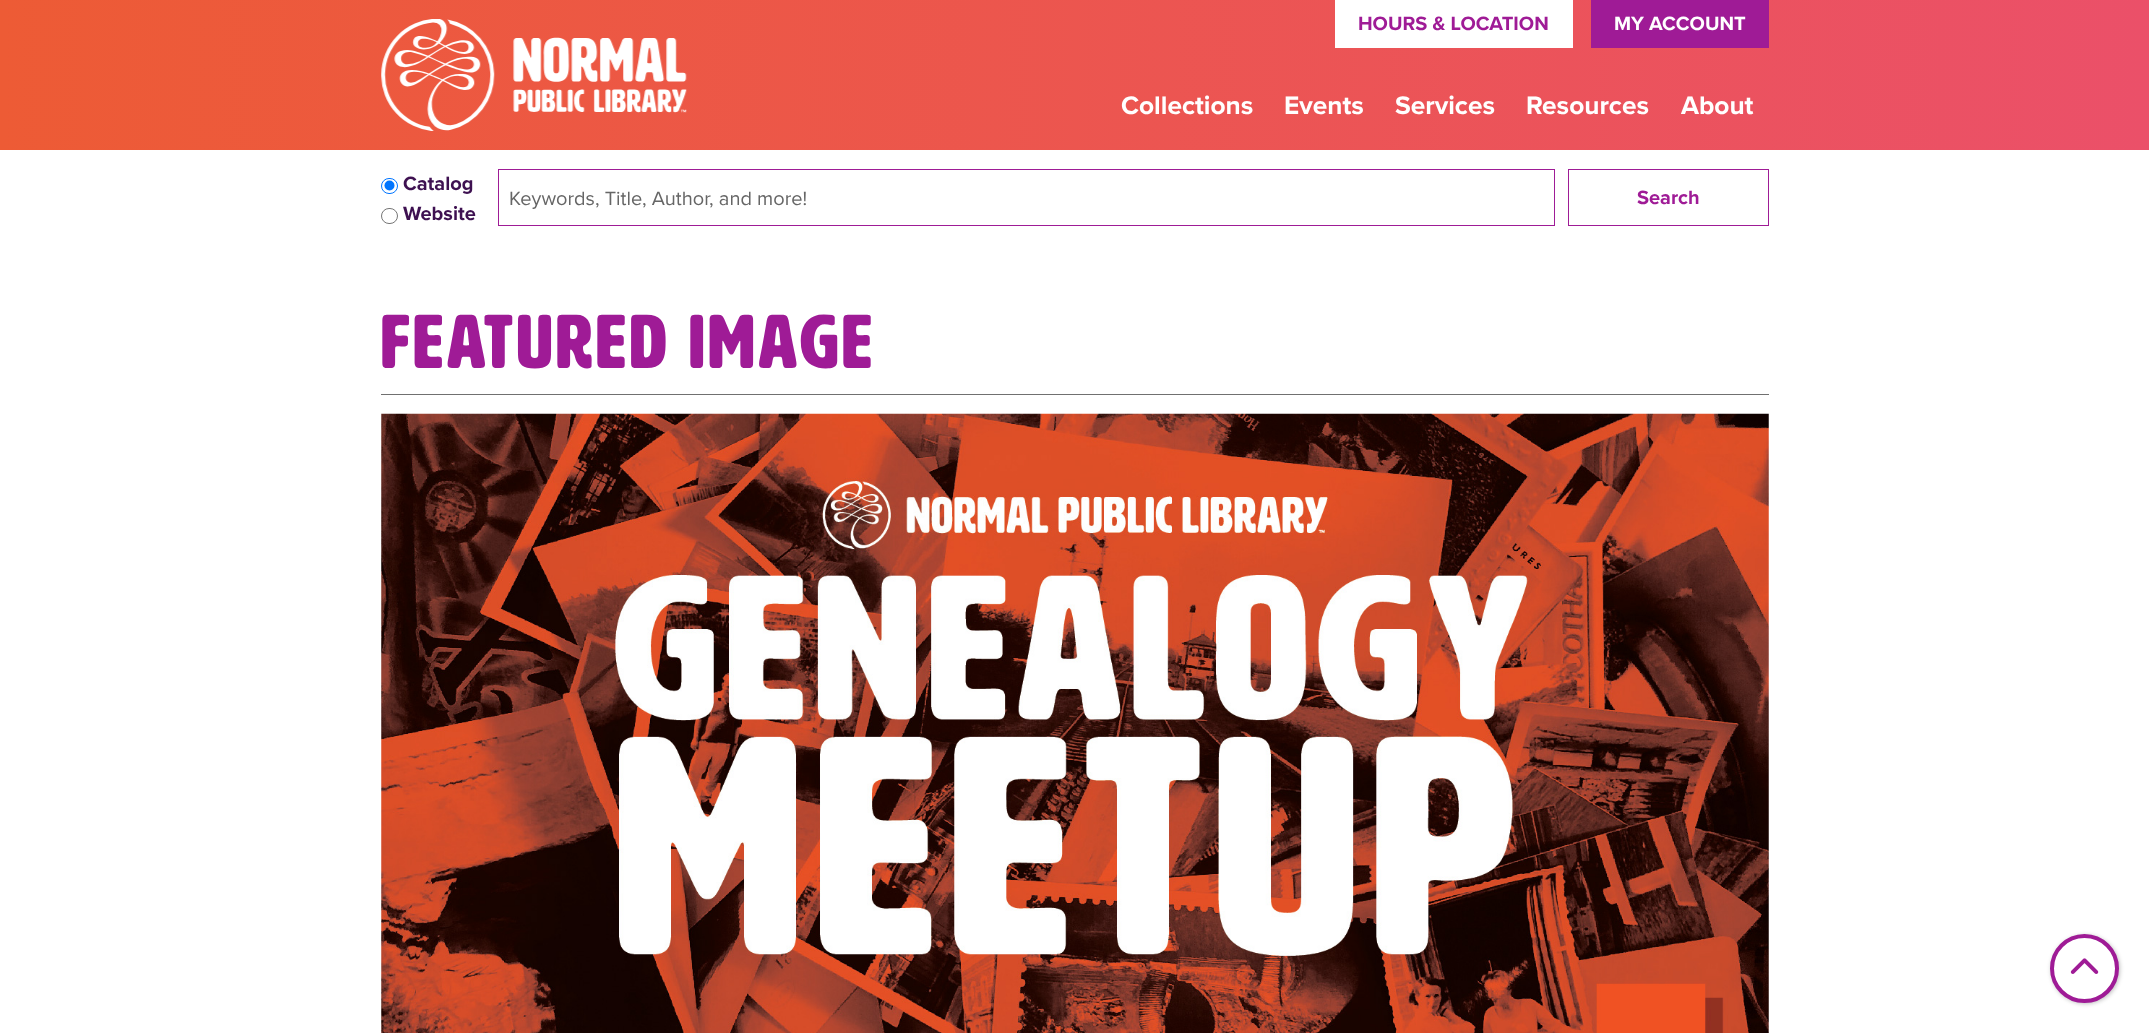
<svg xmlns="http://www.w3.org/2000/svg" width="2149" height="1033">
<defs>
<linearGradient id="g1" gradientUnits="userSpaceOnUse" x1="0" y1="75" x2="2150" y2="75"><stop offset="0" stop-color="#ed5b35"/><stop offset="1" stop-color="#eb5069"/></linearGradient>
</defs>
<rect width="100%" height="100%" fill="#fff"/>
<rect width="2149" height="150" fill="url(#g1)"/>
<image x="381" y="19" width="306" height="112" href="media/1.png"/>
<rect x="1335" width="238" height="48" fill="#fff"/>
<text x="1358" y="30" style="font-family:Proxima Nova;font-size:20px;font-weight:bold;fill:#9f1b96">HOURS &amp; LOCATION</text>
<rect x="1591" width="178" height="48" fill="#9f1b96"/>
<text x="1614" y="30" style="font-family:Proxima Nova;font-size:20px;font-weight:bold;fill:#fff">MY ACCOUNT</text>
<text x="1121" y="114" style="font-family:Proxima Nova;font-size:26.25px;font-weight:bold;fill:#fff">Collections</text>
<text x="1284" y="114" style="font-family:Proxima Nova;font-size:26.25px;font-weight:bold;fill:#fff">Events</text>
<text x="1395" y="114" style="font-family:Proxima Nova;font-size:26.25px;font-weight:bold;fill:#fff">Services</text>
<text x="1526" y="114" style="font-family:Proxima Nova;font-size:26.25px;font-weight:bold;fill:#fff">Resources</text>
<text x="1681" y="114" style="font-family:Proxima Nova;font-size:26.25px;font-weight:bold;fill:#fff">About</text>
<rect x="381.5" y="178.5" width="16" height="15" rx="7.5" fill="none" stroke="#0075ff"/>
<circle cx="389.5" cy="185.5" r="5" fill="#0075ff"/>
<text x="403" y="190" style="font-family:Proxima Nova;font-size:20px;font-weight:bold;fill:#3e1151">Catalog</text>
<rect x="381.5" y="208.5" width="16" height="15" rx="7.5" fill="none" stroke="#767676"/>
<text x="403" y="220" style="font-family:Proxima Nova;font-size:20px;font-weight:bold;fill:#3e1151">Website</text>
<rect x="498.5" y="169.5" width="1056" height="56" fill="none" stroke="#9f1b96"/>
<text x="509" y="205" style="font-family:Proxima Nova;font-size:20px;fill:#666">Keywords, Title, Author, and more!</text>
<rect x="1568.5" y="169.5" width="200" height="56" fill="none" stroke="#9f1b96"/>
<text x="1637" y="204" style="font-family:Proxima Nova;font-size:20px;font-weight:bold;fill:#9f1b96">Search</text>
<rect x="381" y="394" width="1388" height="1" fill="#707070"/>
<text x="381" y="368" style="font-family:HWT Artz;font-size:75px;font-weight:bold;letter-spacing:3.75px;fill:#9f1b96">Featured Image</text>
<image x="381" y="413" width="1388" height="620" href="media/2.png"/>
<rect x="2051" y="935" width="69" height="69" rx="34.5" fill="#00000040" filter="blur(2px)"/>
<circle cx="2084.5" cy="968.5" r="32.5" fill="#fff" stroke="#9f1b96" stroke-width="4"/>
<image x="2070" y="958" width="29" height="16" href="media/3.png"/>
</svg>
